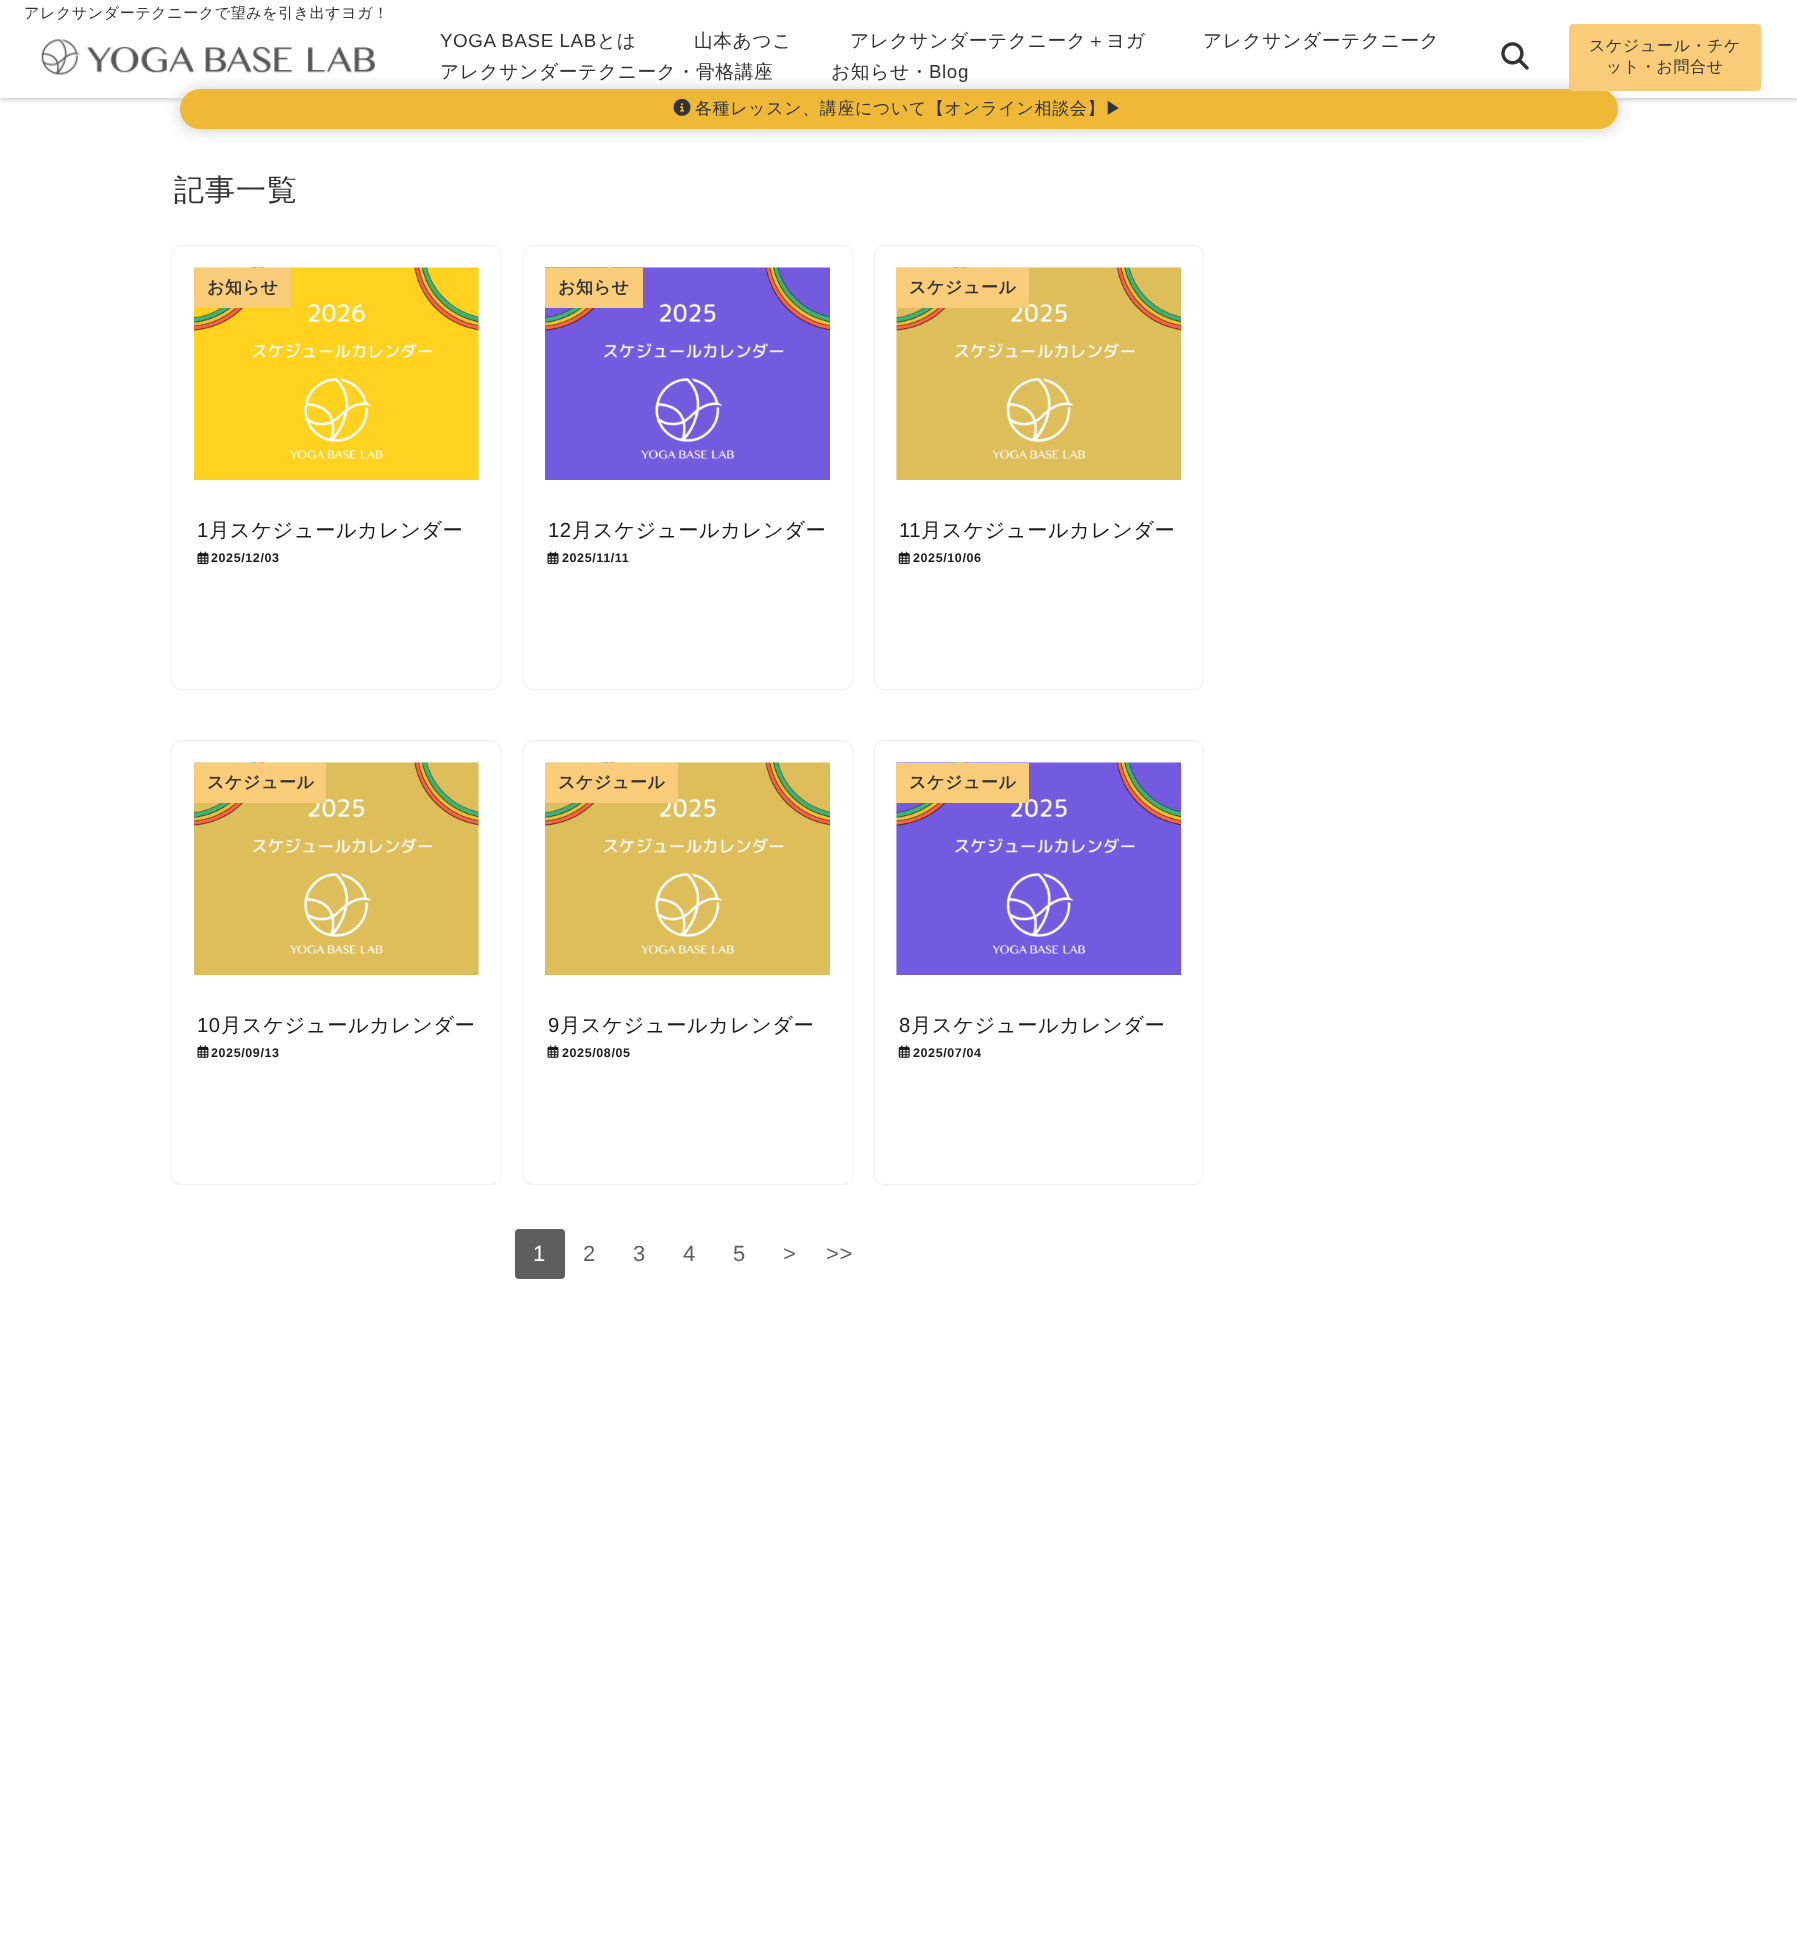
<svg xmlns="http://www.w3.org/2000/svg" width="1797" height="1960">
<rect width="100%" height="100%" fill="#fff"/>
<rect y="3" width="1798" height="97" fill="#ccc" filter="blur(2.5px)"/>
<rect width="1797" height="98" fill="#fff"/>
<text x="24" y="18" style="font-family:WenQuanYi Zen Hei;font-size:15px;font-weight:500;letter-spacing:0.6px;fill:#333">アレクサンダーテクニークで望みを引き出すヨガ！</text>
<image x="41" y="39" width="334" height="36" href="media/1.png"/>
<text x="440" y="47" style="font-family:Liberation Sans;font-size:18.75px;letter-spacing:0.6px;fill:#333">YOGA BASE LAB</text>
<text x="597" y="47" style="font-family:WenQuanYi Zen Hei;font-size:18.75px;font-weight:500;letter-spacing:0.6px;fill:#333">とは</text>
<text x="694" y="47" style="font-family:WenQuanYi Zen Hei;font-size:18.75px;font-weight:500;letter-spacing:0.6px;fill:#333">山本あつこ</text>
<text x="850" y="47" style="font-family:WenQuanYi Zen Hei;font-size:18.75px;font-weight:500;letter-spacing:0.6px;fill:#333">アレクサンダーテクニーク＋ヨガ</text>
<text x="1203" y="47" style="font-family:WenQuanYi Zen Hei;font-size:18.75px;font-weight:500;letter-spacing:0.6px;fill:#333">アレクサンダーテクニーク</text>
<rect x="180" y="90" width="1438" height="40" rx="20" fill="#ccc" filter="blur(8px)"/>
<text x="440" y="78" style="font-family:WenQuanYi Zen Hei;font-size:18.75px;font-weight:500;letter-spacing:0.6px;fill:#333">アレクサンダーテクニーク・骨格講座</text>
<text x="831" y="78" style="font-family:WenQuanYi Zen Hei;font-size:18.75px;font-weight:500;letter-spacing:0.6px;fill:#333">お知らせ・</text>
<text x="929" y="78" style="font-family:Liberation Sans;font-size:18.75px;letter-spacing:0.6px;fill:#333">Blog</text>
<image x="1501" y="42" width="28" height="28" href="media/2.png"/>
<rect x="180" y="89" width="1438" height="40" rx="20" fill="#efb837"/>
<rect x="1569" y="24" width="192" height="67" rx="4" fill="#f9cc7a"/>
<text x="1589" y="51" style="font-family:WenQuanYi Zen Hei;font-size:16px;font-weight:500;letter-spacing:0.6px;fill:#333">スケジュール・チケ</text>
<text x="1606" y="72" style="font-family:WenQuanYi Zen Hei;font-size:16px;font-weight:500;letter-spacing:0.6px;fill:#333">ット・お問合せ</text>
<image x="673" y="98" width="18" height="18" href="media/3.png"/>
<text x="695" y="114" style="font-family:WenQuanYi Zen Hei;font-size:17px;font-weight:500;letter-spacing:0.6px;fill:#333">各種レッスン、講座について【オンライン相談会】▶︎</text>
<text x="174" y="200" style="font-family:WenQuanYi Zen Hei;font-size:30px;font-weight:500;letter-spacing:1px;fill:#333">記事一覧</text>
<rect x="171.5" y="245.5" width="329" height="444" rx="9.5" fill="none" stroke="#eee"/>
<image x="193" y="267" width="286" height="213" href="media/4.png"/>
<rect x="194" y="268" width="97" height="40" fill="#f9cc7a"/>
<text x="207" y="293" style="font-family:WenQuanYi Zen Hei;font-size:17px;font-weight:bold;letter-spacing:0.6px;fill:#333">お知らせ</text>
<text x="197" y="537" style="font-family:Liberation Sans;font-size:20.25px;letter-spacing:0.6px;fill:#1a1a1a">1</text>
<text x="209" y="537" style="font-family:WenQuanYi Zen Hei;font-size:20.25px;font-weight:500;letter-spacing:0.6px;fill:#1a1a1a">月スケジュールカレンダー</text>
<image x="197" y="551" width="12" height="14" href="media/5.png"/>
<text x="211" y="562" style="font-family:Liberation Sans;font-size:12.5px;font-weight:bold;letter-spacing:0.6px;fill:#1a1a1a">2025/12/03</text>
<rect x="523.5" y="245.5" width="329" height="444" rx="9.5" fill="none" stroke="#eee"/>
<image x="545" y="267" width="285" height="213" href="media/6.png"/>
<rect x="545" y="268" width="98" height="40" fill="#f9cc7a"/>
<text x="558" y="293" style="font-family:WenQuanYi Zen Hei;font-size:17px;font-weight:bold;letter-spacing:0.6px;fill:#333">お知らせ</text>
<text x="548" y="537" style="font-family:Liberation Sans;font-size:20.25px;letter-spacing:0.6px;fill:#1a1a1a">12</text>
<text x="572" y="537" style="font-family:WenQuanYi Zen Hei;font-size:20.25px;font-weight:500;letter-spacing:0.6px;fill:#1a1a1a">月スケジュールカレンダー</text>
<image x="547" y="551" width="12" height="14" href="media/5.png"/>
<text x="562" y="562" style="font-family:Liberation Sans;font-size:12.5px;font-weight:bold;letter-spacing:0.6px;fill:#1a1a1a">2025/11/11</text>
<rect x="874.5" y="245.5" width="329" height="444" rx="9.5" fill="none" stroke="#eee"/>
<image x="896" y="267" width="286" height="213" href="media/7.png"/>
<rect x="896" y="268" width="133" height="40" fill="#f9cc7a"/>
<text x="909" y="293" style="font-family:WenQuanYi Zen Hei;font-size:17px;font-weight:bold;letter-spacing:0.6px;fill:#333">スケジュール</text>
<text x="899" y="537" style="font-family:Liberation Sans;font-size:20.25px;letter-spacing:0.6px;fill:#1a1a1a">11</text>
<text x="921" y="537" style="font-family:WenQuanYi Zen Hei;font-size:20.25px;font-weight:500;letter-spacing:0.6px;fill:#1a1a1a">月スケジュールカレンダー</text>
<image x="898" y="551" width="12" height="14" href="media/8.png"/>
<text x="913" y="562" style="font-family:Liberation Sans;font-size:12.5px;font-weight:bold;letter-spacing:0.6px;fill:#1a1a1a">2025/10/06</text>
<rect x="171.5" y="740.5" width="329" height="444" rx="9.5" fill="none" stroke="#eee"/>
<image x="193" y="762" width="286" height="213" href="media/9.png"/>
<rect x="194" y="763" width="132" height="40" fill="#f9cc7a"/>
<text x="207" y="788" style="font-family:WenQuanYi Zen Hei;font-size:17px;font-weight:bold;letter-spacing:0.6px;fill:#333">スケジュール</text>
<text x="197" y="1032" style="font-family:Liberation Sans;font-size:20.25px;letter-spacing:0.6px;fill:#1a1a1a">10</text>
<text x="221" y="1032" style="font-family:WenQuanYi Zen Hei;font-size:20.25px;font-weight:500;letter-spacing:0.6px;fill:#1a1a1a">月スケジュールカレンダー</text>
<image x="197" y="1045" width="12" height="13" href="media/10.png"/>
<text x="211" y="1057" style="font-family:Liberation Sans;font-size:12.5px;font-weight:bold;letter-spacing:0.6px;fill:#1a1a1a">2025/09/13</text>
<rect x="523.5" y="740.5" width="329" height="444" rx="9.5" fill="none" stroke="#eee"/>
<image x="545" y="762" width="285" height="213" href="media/11.png"/>
<rect x="545" y="763" width="133" height="40" fill="#f9cc7a"/>
<text x="558" y="788" style="font-family:WenQuanYi Zen Hei;font-size:17px;font-weight:bold;letter-spacing:0.6px;fill:#333">スケジュール</text>
<text x="548" y="1032" style="font-family:Liberation Sans;font-size:20.25px;letter-spacing:0.6px;fill:#1a1a1a">9</text>
<text x="560" y="1032" style="font-family:WenQuanYi Zen Hei;font-size:20.25px;font-weight:500;letter-spacing:0.6px;fill:#1a1a1a">月スケジュールカレンダー</text>
<image x="547" y="1045" width="12" height="13" href="media/10.png"/>
<text x="562" y="1057" style="font-family:Liberation Sans;font-size:12.5px;font-weight:bold;letter-spacing:0.6px;fill:#1a1a1a">2025/08/05</text>
<rect x="874.5" y="740.5" width="329" height="444" rx="9.5" fill="none" stroke="#eee"/>
<image x="896" y="762" width="286" height="213" href="media/12.png"/>
<rect x="896" y="763" width="133" height="40" fill="#f9cc7a"/>
<text x="909" y="788" style="font-family:WenQuanYi Zen Hei;font-size:17px;font-weight:bold;letter-spacing:0.6px;fill:#333">スケジュール</text>
<text x="899" y="1032" style="font-family:Liberation Sans;font-size:20.25px;letter-spacing:0.6px;fill:#1a1a1a">8</text>
<text x="911" y="1032" style="font-family:WenQuanYi Zen Hei;font-size:20.25px;font-weight:500;letter-spacing:0.6px;fill:#1a1a1a">月スケジュールカレンダー</text>
<image x="898" y="1045" width="12" height="13" href="media/13.png"/>
<text x="913" y="1057" style="font-family:Liberation Sans;font-size:12.5px;font-weight:bold;letter-spacing:0.6px;fill:#1a1a1a">2025/07/04</text>
<rect x="515" y="1229" width="50" height="50" rx="4" fill="#5e5e5e"/>
<text x="533" y="1261" style="font-family:Liberation Sans;font-size:22px;letter-spacing:0.6px;fill:#fff">1</text>
<text x="583" y="1261" style="font-family:Liberation Sans;font-size:22px;letter-spacing:0.6px;fill:#5e5e5e">2</text>
<text x="633" y="1261" style="font-family:Liberation Sans;font-size:22px;letter-spacing:0.6px;fill:#5e5e5e">3</text>
<text x="683" y="1261" style="font-family:Liberation Sans;font-size:22px;letter-spacing:0.6px;fill:#5e5e5e">4</text>
<text x="733" y="1261" style="font-family:Liberation Sans;font-size:22px;letter-spacing:0.6px;fill:#5e5e5e">5</text>
<text x="783" y="1261" style="font-family:Liberation Sans;font-size:22px;letter-spacing:0.6px;fill:#5e5e5e">&gt;</text>
<text x="826" y="1261" style="font-family:Liberation Sans;font-size:22px;letter-spacing:0.6px;fill:#5e5e5e">&gt;&gt;</text>
</svg>
